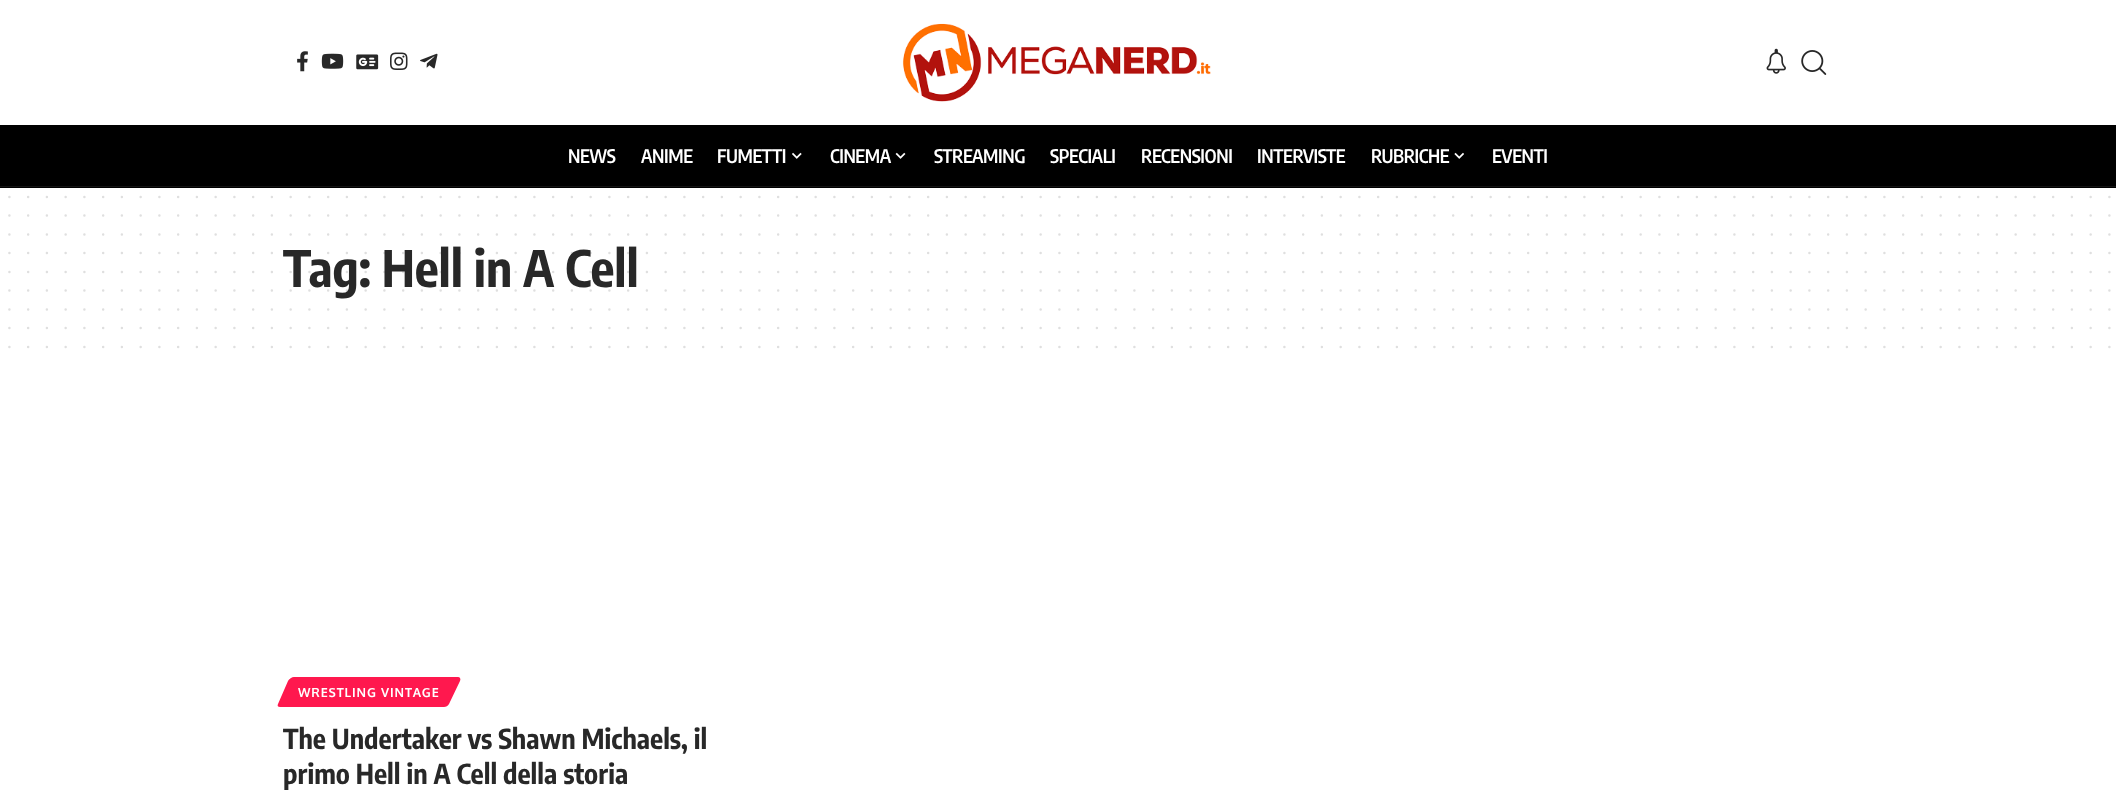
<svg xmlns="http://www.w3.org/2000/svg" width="2116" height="791">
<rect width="100%" height="100%" fill="#fff"/>
<image x="297" y="51" width="11" height="21" href="media/1.png"/>
<image x="321" y="53" width="23" height="16" href="media/2.png"/>
<image x="356" y="54" width="23" height="16" href="media/3.png"/>
<image x="390" y="52" width="18" height="18" href="media/4.png"/>
<image x="420" y="53" width="18" height="16" href="media/5.png"/>
<image x="902" y="23" width="309" height="79" href="media/6.png"/>
<image x="1766" y="48" width="20" height="26" href="media/7.png"/>
<image x="1801" y="50" width="26" height="25" href="media/8.png"/>
<rect y="125" width="2116" height="63" fill="#000"/>
<text x="568" y="163" style="font-family:Encode Sans Condensed;font-size:18.75px;font-weight:600;letter-spacing:-0.4px;fill:#fff">NEWS</text>
<text x="641" y="163" style="font-family:Encode Sans Condensed;font-size:18.75px;font-weight:600;letter-spacing:-0.4px;fill:#fff">ANIME</text>
<text x="717" y="163" style="font-family:Encode Sans Condensed;font-size:18.75px;font-weight:600;letter-spacing:-0.4px;fill:#fff">FUMETTI</text>
<image x="792" y="152" width="10" height="7" href="media/9.png"/>
<text x="830" y="163" style="font-family:Encode Sans Condensed;font-size:18.75px;font-weight:600;letter-spacing:-0.4px;fill:#fff">CINEMA</text>
<image x="895" y="152" width="11" height="7" href="media/10.png"/>
<text x="934" y="163" style="font-family:Encode Sans Condensed;font-size:18.75px;font-weight:600;letter-spacing:-0.4px;fill:#fff">STREAMING</text>
<text x="1050" y="163" style="font-family:Encode Sans Condensed;font-size:18.75px;font-weight:600;letter-spacing:-0.4px;fill:#fff">SPECIALI</text>
<text x="1141" y="163" style="font-family:Encode Sans Condensed;font-size:18.75px;font-weight:600;letter-spacing:-0.4px;fill:#fff">RECENSIONI</text>
<text x="1257" y="163" style="font-family:Encode Sans Condensed;font-size:18.75px;font-weight:600;letter-spacing:-0.4px;fill:#fff">INTERVISTE</text>
<text x="1371" y="163" style="font-family:Encode Sans Condensed;font-size:18.75px;font-weight:600;letter-spacing:-0.4px;fill:#fff">RUBRICHE</text>
<image x="1454" y="152" width="10" height="7" href="media/11.png"/>
<text x="1492" y="163" style="font-family:Encode Sans Condensed;font-size:18.75px;font-weight:600;letter-spacing:-0.4px;fill:#fff">EVENTI</text>
<rect y="186" width="2116" height="1" fill="#141414"/>
<path d="M9.4 196.9h2100.2" fill="none" stroke="#dfdfdf" stroke-width="2.5" stroke-linecap="round" stroke-dasharray="0 18.75"/>
<path d="M9.4 215.6h2100.2" fill="none" stroke="#dfdfdf" stroke-width="2.5" stroke-linecap="round" stroke-dasharray="0 18.75"/>
<path d="M9.4 234.4h2100.2" fill="none" stroke="#dfdfdf" stroke-width="2.5" stroke-linecap="round" stroke-dasharray="0 18.75"/>
<text x="283" y="287" style="font-family:Encode Sans Condensed;font-size:50px;font-weight:bold;fill:#282828">Tag: Hell in A Cell</text>
<path d="M9.4 253.1h2100.2" fill="none" stroke="#28282826" stroke-width="2.5" stroke-linecap="round" stroke-dasharray="0 18.75"/>
<path d="M9.4 271.9h2100.2" fill="none" stroke="#28282826" stroke-width="2.5" stroke-linecap="round" stroke-dasharray="0 18.75"/>
<path d="M9.4 290.6h2100.2" fill="none" stroke="#28282826" stroke-width="2.5" stroke-linecap="round" stroke-dasharray="0 18.75"/>
<path d="M9.4 309.4h2100.2" fill="none" stroke="#dfdfdf" stroke-width="2.5" stroke-linecap="round" stroke-dasharray="0 18.75"/>
<path d="M9.4 328.1h2100.2" fill="none" stroke="#dfdfdf" stroke-width="2.5" stroke-linecap="round" stroke-dasharray="0 18.75"/>
<path d="M9.4 346.9h2100.2" fill="none" stroke="#dfdfdf" stroke-width="2.5" stroke-linecap="round" stroke-dasharray="0 18.75"/>
<path d="M294 677h164c2 0 3 2 2 4l-11 23c-1 2-3 3-5 3h-164c-2 0-3-1-2-3l10-23c1-2 4-4 6-4z" fill="#ff184e"/>
<text x="298" y="697" style="font-family:Oxygen;font-size:12.5px;font-weight:bold;letter-spacing:0.9px;fill:#fff">WRESTLING VINTAGE</text>
<text x="283" y="749" style="font-family:Encode Sans Condensed;font-size:27.5px;font-weight:bold;fill:#282828">The Undertaker vs Shawn Michaels, il</text>
<text x="283" y="784" style="font-family:Encode Sans Condensed;font-size:27.5px;font-weight:bold;fill:#282828">primo Hell in A Cell della storia</text>
</svg>
